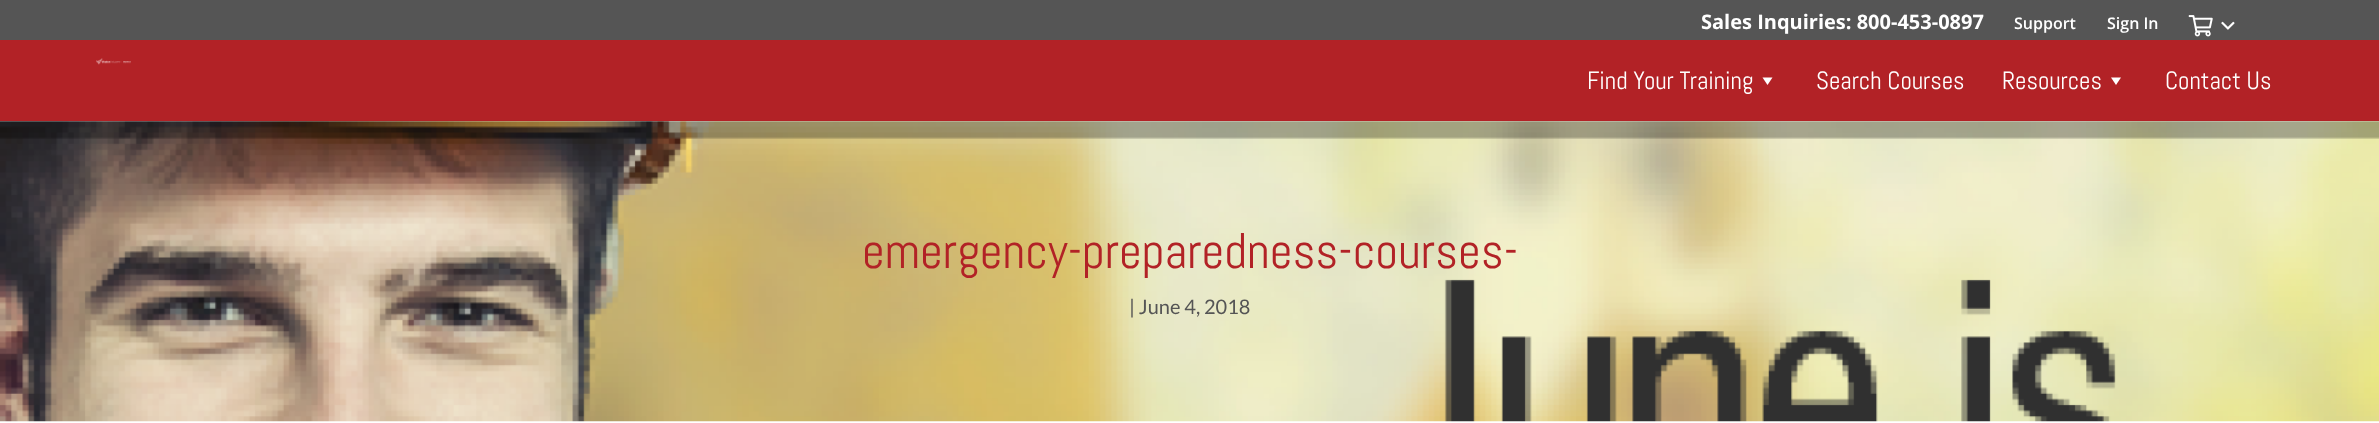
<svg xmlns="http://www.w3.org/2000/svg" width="2379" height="423">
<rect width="100%" height="100%" fill="#fff"/>
<rect width="2379" height="40" fill="#555"/>
<text x="1701" y="29" style="font-family:Open Sans;font-size:20px;font-weight:bold;fill:#fff">Sales Inquiries: 800-453-0897</text>
<text x="2014" y="29" style="font-family:Open Sans;font-size:16px;font-weight:600;fill:#fff">Support</text>
<text x="2107" y="29" style="font-family:Open Sans;font-size:16px;font-weight:600;fill:#fff">Sign In</text>
<image x="2188" y="15" width="25" height="22" href="media/1.png"/>
<image x="2221" y="21" width="14" height="9" href="media/2.png"/>
<rect y="40" width="2379" height="81" fill="#b22226"/>
<image x="96" y="58" width="35" height="7" href="media/3.png"/>
<text x="1587" y="89" style="font-family:Abel;font-size:25px;fill:#fff">Find Your Training</text>
<path d="M1772.5 77.5l-5 7.5l-5-7.5z" fill="#fff"/>
<text x="1816" y="89" style="font-family:Abel;font-size:25px;fill:#fff">Search Courses</text>
<text x="2002" y="89" style="font-family:Abel;font-size:25px;fill:#fff">Resources</text>
<path d="M2121 77.5l-5 7.5l-5-7.5z" fill="#fff"/>
<text x="2165" y="89" style="font-family:Abel;font-size:25px;fill:#fff">Contact Us</text>
<image x="0" y="121" width="2379" height="301" href="media/4.png"/>
<text x="862" y="268" style="font-family:Abel;font-size:50px;fill:#b22226">emergency-preparedness-courses-</text>
<text x="1129" y="314" style="font-family:Lato;font-size:20px;fill:#555">| June 4, 2018</text>
</svg>
